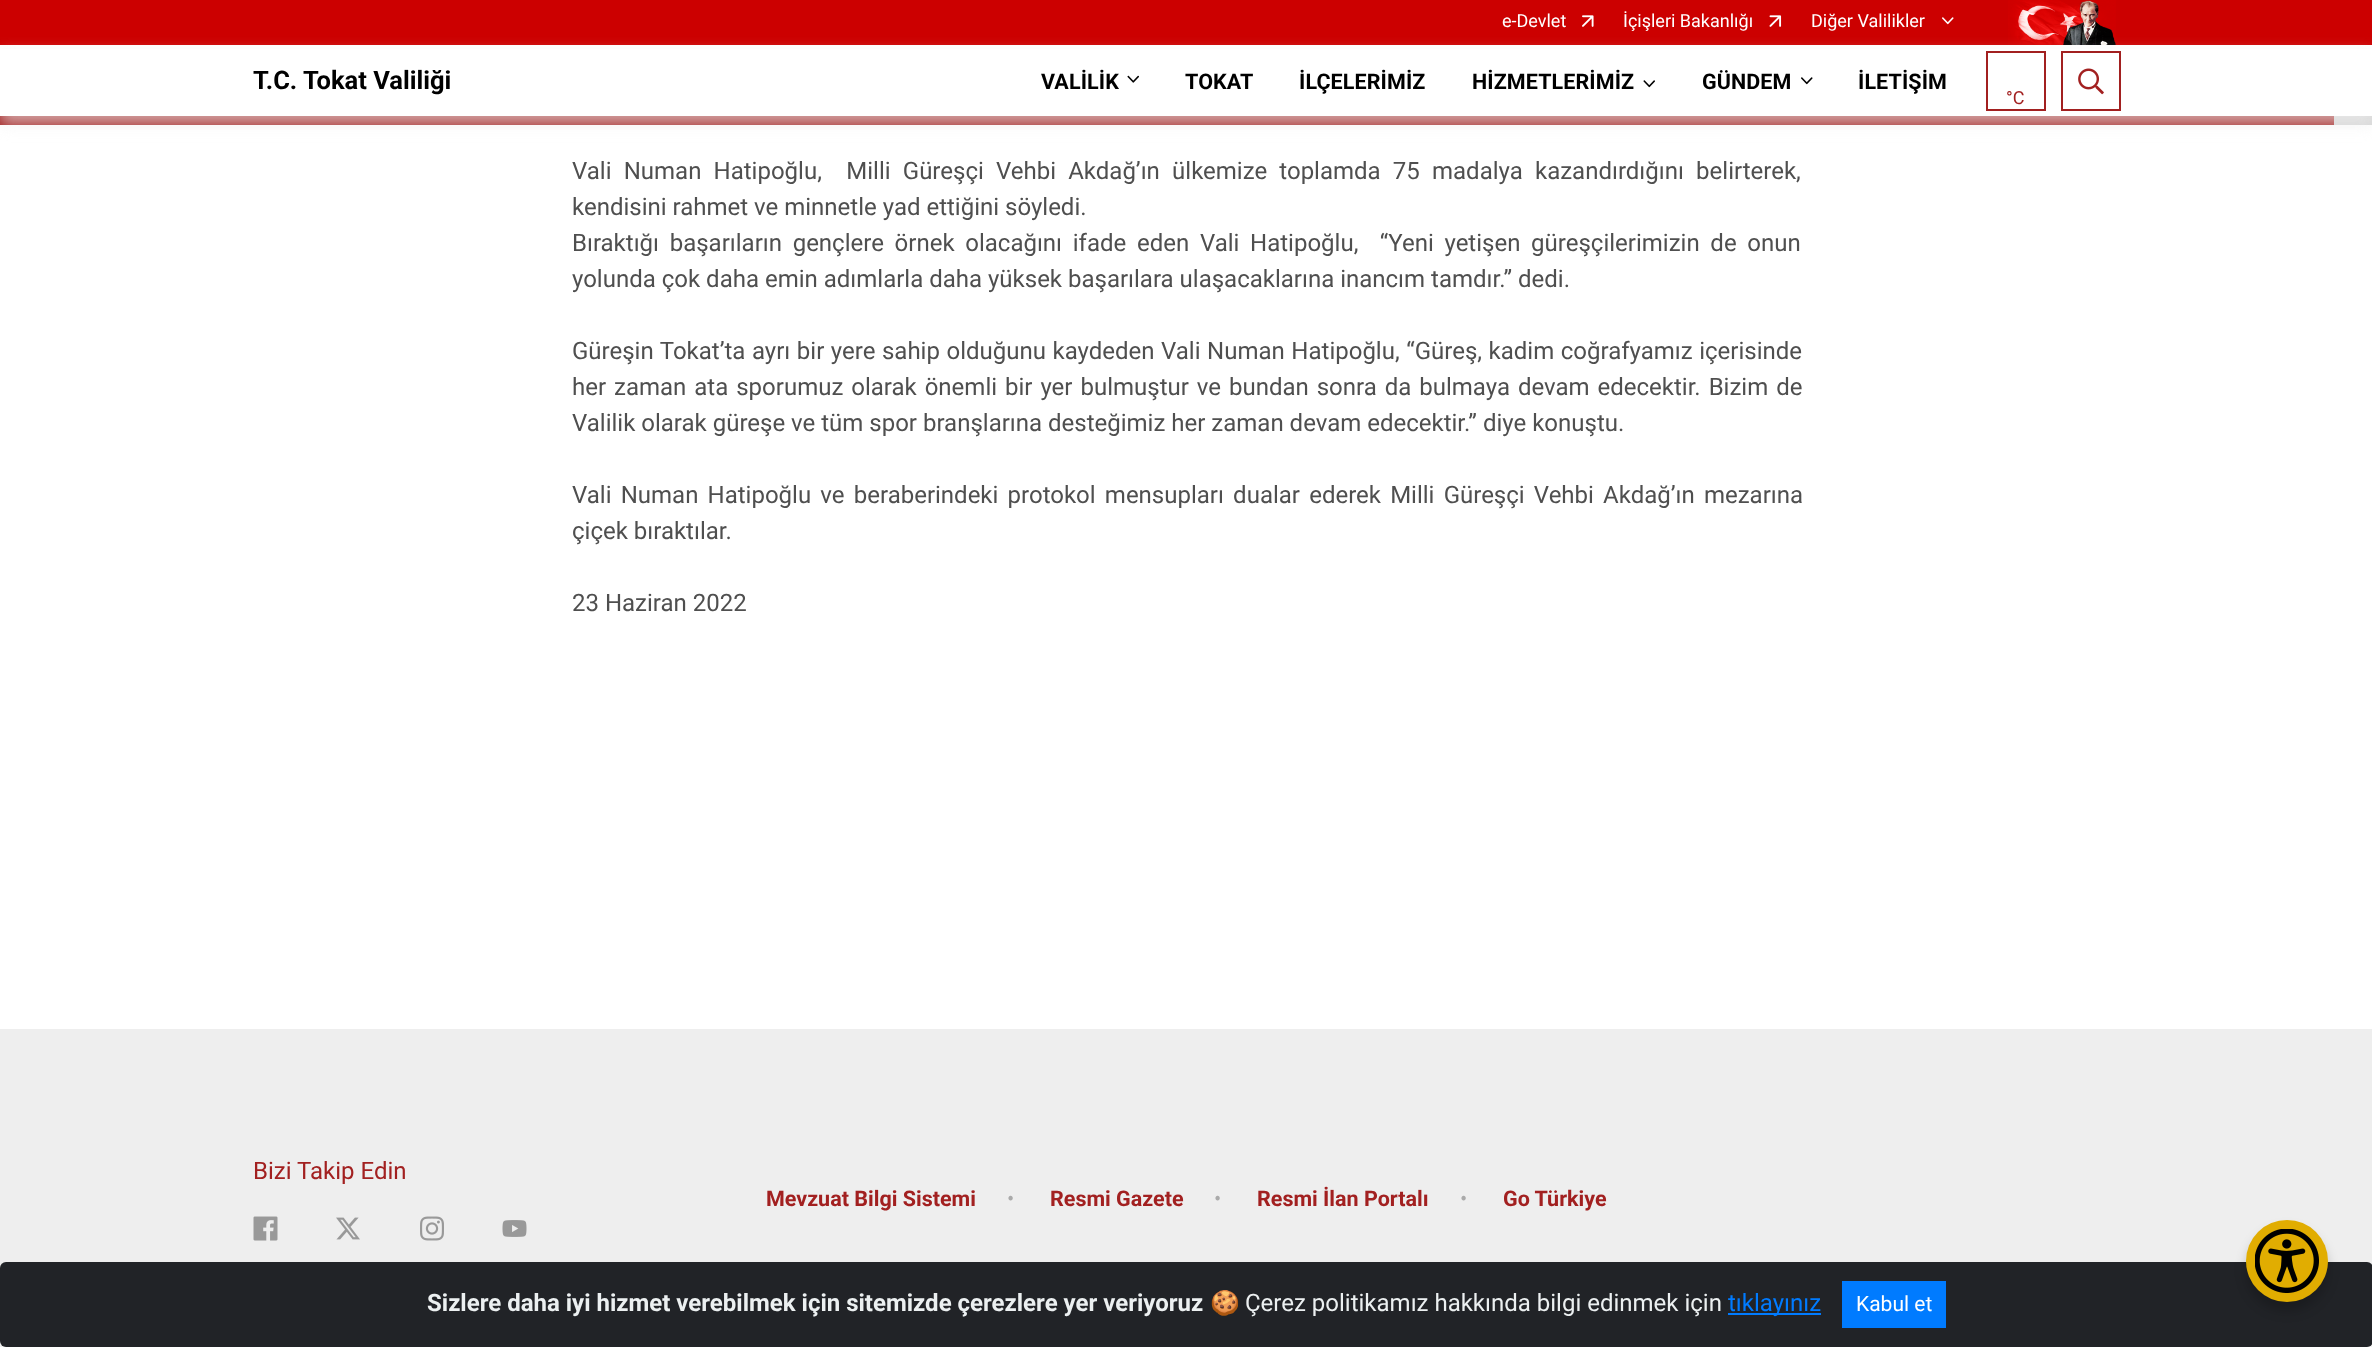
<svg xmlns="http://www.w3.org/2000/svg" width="2372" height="1347">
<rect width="100%" height="100%" fill="#fff"/>
<rect width="2372" height="45" fill="#c00"/>
<text x="1502" y="27" style="font-family:Roboto;font-size:18px;fill:#fff">e-Devlet</text>
<image x="1582" y="15" width="12" height="12" href="media/1.png"/>
<text x="1623" y="27" style="font-family:Roboto;font-size:18px;fill:#fff">İçişleri Bakanlığı</text>
<image x="1769" y="15" width="13" height="12" href="media/2.png"/>
<text x="1811" y="27" style="font-family:Roboto;font-size:18px;fill:#fff">Diğer Valilikler</text>
<image x="1942" y="17" width="12" height="8" href="media/3.png"/>
<image x="2008" y="0" width="108" height="45" href="media/4.png"/>
<rect x="2334" y="116" width="38" height="9" fill="#d7d7d7"/>
<rect y="116" width="2334" height="9" fill="#a22020"/>
<rect y="54" width="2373" height="71" fill="#eeeeee9e" filter="blur(7.5px)"/>
<rect y="49" width="2372" height="67" fill="#fff"/>
<text x="253" y="89" style="font-family:Roboto;font-size:25.5px;font-weight:bold;fill:#000">T.C. Tokat Valiliği</text>
<text x="1041" y="89" style="font-family:Roboto;font-size:21.5px;font-weight:bold;letter-spacing:0.1px;fill:#000">VALİLİK</text>
<image x="1127" y="75" width="12" height="8" href="media/5.png"/>
<text x="1185" y="89" style="font-family:Roboto;font-size:21.5px;font-weight:bold;letter-spacing:0.1px;fill:#000">TOKAT</text>
<text x="1299" y="89" style="font-family:Roboto;font-size:21.5px;font-weight:bold;letter-spacing:0.1px;fill:#000">İLÇELERİMİZ</text>
<text x="1472" y="89" style="font-family:Roboto;font-size:21.5px;font-weight:bold;letter-spacing:0.1px;fill:#000">HİZMETLERİMİZ</text>
<image x="1643" y="80" width="12" height="8" href="media/6.png"/>
<text x="1702" y="89" style="font-family:Roboto;font-size:21.5px;font-weight:bold;letter-spacing:0.1px;fill:#000">GÜNDEM</text>
<image x="1801" y="77" width="12" height="8" href="media/7.png"/>
<text x="1858" y="89" style="font-family:Roboto;font-size:21.5px;font-weight:bold;letter-spacing:0.1px;fill:#000">İLETİŞİM</text>
<rect x="1987" y="52" width="58" height="58" fill="none" stroke="#a22020" stroke-width="2"/>
<text x="2006" y="104" style="font-family:Roboto;font-size:18px;fill:#a22020">°C</text>
<rect x="2062" y="52" width="58" height="58" fill="none" stroke="#a22020" stroke-width="2"/>
<image x="2078" y="68" width="26" height="27" href="media/8.png"/>
<text x="572" y="179" word-spacing="6.25" style="font-family:Roboto;font-size:24px;fill:#4f4f4f" xml:space="preserve">Vali Numan Hatipoğlu,  Milli Güreşçi Vehbi Akdağ’ın ülkemize toplamda 75 madalya kazandırdığını belirterek,</text>
<text x="572" y="215" style="font-family:Roboto;font-size:24px;fill:#4f4f4f">kendisini rahmet ve minnetle yad ettiğini söyledi.</text>
<text x="572" y="251" word-spacing="4.75" style="font-family:Roboto;font-size:24px;fill:#4f4f4f" xml:space="preserve">Bıraktığı başarıların gençlere örnek olacağını ifade eden Vali Hatipoğlu,  “Yeni yetişen güreşçilerimizin de onun</text>
<text x="572" y="287" style="font-family:Roboto;font-size:24px;fill:#4f4f4f">yolunda çok daha emin adımlarla daha yüksek başarılara ulaşacaklarına inancım tamdır.” dedi.</text>
<text x="572" y="359" word-spacing="0.6" style="font-family:Roboto;font-size:24px;fill:#4f4f4f">Güreşin Tokat’ta ayrı bir yere sahip olduğunu kaydeden Vali Numan Hatipoğlu, “Güreş, kadim coğrafyamız içerisinde</text>
<text x="572" y="395" word-spacing="2" style="font-family:Roboto;font-size:24px;fill:#4f4f4f">her zaman ata sporumuz olarak önemli bir yer bulmuştur ve bundan sonra da bulmaya devam edecektir. Bizim de</text>
<text x="572" y="431" style="font-family:Roboto;font-size:24px;fill:#4f4f4f">Valilik olarak güreşe ve tüm spor branşlarına desteğimiz her zaman devam edecektir.” diye konuştu.</text>
<text x="572" y="503" word-spacing="3.25" style="font-family:Roboto;font-size:24px;fill:#4f4f4f">Vali Numan Hatipoğlu ve beraberindeki protokol mensupları dualar ederek Milli Güreşçi Vehbi Akdağ’ın mezarına</text>
<text x="572" y="539" style="font-family:Roboto;font-size:24px;fill:#4f4f4f">çiçek bıraktılar.</text>
<text x="572" y="611" style="font-family:Roboto;font-size:24px;fill:#4f4f4f">23 Haziran 2022</text>
<rect y="1029" width="2372" height="318" fill="#eee"/>
<text x="253" y="1179" style="font-family:Roboto;font-size:24px;fill:#a22020">Bizi Takip Edin</text>
<image x="253" y="1216" width="25" height="25" href="media/9.png"/>
<image x="336" y="1217" width="24" height="23" href="media/10.png"/>
<image x="420" y="1216" width="24" height="25" href="media/11.png"/>
<image x="502" y="1220" width="25" height="17" href="media/12.png"/>
<text x="766" y="1206" style="font-family:Roboto;font-size:21.5px;font-weight:bold;fill:#a22020">Mevzuat Bilgi Sistemi</text>
<text x="1007" y="1206" style="font-family:Roboto;font-size:21.5px;fill:#aaa">•</text>
<text x="1050" y="1206" style="font-family:Roboto;font-size:21.5px;font-weight:bold;fill:#a22020">Resmi Gazete</text>
<text x="1214" y="1206" style="font-family:Roboto;font-size:21.5px;fill:#aaa">•</text>
<text x="1257" y="1206" style="font-family:Roboto;font-size:21.5px;font-weight:bold;fill:#a22020">Resmi İlan Portalı</text>
<text x="1460" y="1206" style="font-family:Roboto;font-size:21.5px;fill:#aaa">•</text>
<text x="1503" y="1206" style="font-family:Roboto;font-size:21.5px;font-weight:bold;fill:#a22020">Go Türkiye</text>
<rect y="1262" width="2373" height="85" rx="6" fill="#212327"/>
<text x="427" y="1311" style="font-family:Roboto;font-size:24px;font-weight:bold;fill:#ecf0f1">Sizlere daha iyi hizmet verebilmek için sitemizde çerezlere yer veriyoruz</text>
<text x="1210" y="1311" style="font-family:Noto Color Emoji;font-size:24px;fill:#ecf0f1">🍪</text>
<text x="1245" y="1311" style="font-family:Roboto;font-size:24px;fill:#ecf0f1">Çerez politikamız hakkında bilgi edinmek için</text>
<rect x="1728" y="1313" width="93" height="2" fill="#007bff"/>
<text x="1728" y="1311" style="font-family:Roboto;font-size:24px;fill:#007bff">tıklayınız</text>
<rect x="1842" y="1281" width="104" height="47" fill="#007bff"/>
<text x="1856" y="1311" style="font-family:Roboto;font-size:21px;fill:#fff">Kabul et</text>
<rect x="2246" y="1229" width="82" height="82" rx="41" fill="#00000033" filter="blur(6px)"/>
<circle cx="2287" cy="1261" r="41" fill="#e1ad01"/>
<image x="2255" y="1229" width="64" height="64" href="media/13.png"/>
</svg>
